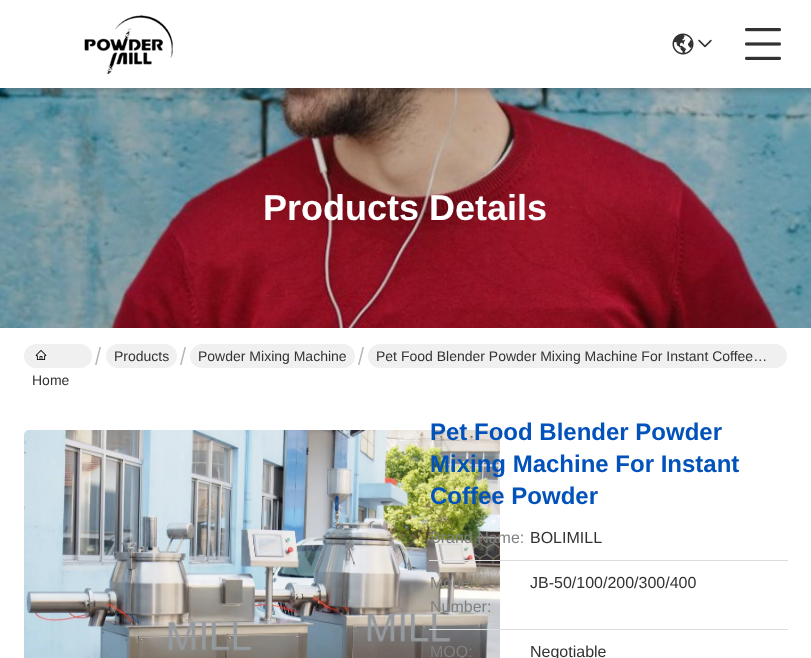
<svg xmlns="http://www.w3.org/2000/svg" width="811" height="658">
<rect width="100%" height="100%" fill="#fff"/>
<image x="0" y="88" width="811" height="240" href="media/5.png"/>
<rect y="4" width="811" height="88" fill="#00000026" filter="blur(2px)"/>
<rect y="1" width="811" height="87" fill="#fff"/>
<image x="84" y="15" width="89" height="59" href="media/1.png"/>
<image x="672" y="33" width="22" height="22" href="media/2.png"/>
<image x="698" y="39" width="14" height="9" href="media/3.png"/>
<image x="745" y="28" width="36" height="32" href="media/4.png"/>
<text x="263" y="220" style="font-family:Liberation Sans;font-size:36px;font-weight:bold;fill:#fff">Products Details</text>
<path d="M101 347l-4.5 18h-1.5l4.5-18z" fill="#b4b4b4" fill-rule="evenodd"/>
<rect x="106" y="344" width="71" height="24" rx="12" fill="#f0f0f0"/>
<text x="114" y="361" style="font-family:Liberation Sans;font-size:14px;fill:#323232">Products</text>
<path d="M186 347l-4.5 18h-1.5l4.5-18z" fill="#b4b4b4" fill-rule="evenodd"/>
<rect x="190" y="344" width="165" height="24" rx="12" fill="#f0f0f0"/>
<text x="198" y="361" style="font-family:Liberation Sans;font-size:14px;fill:#323232">Powder Mixing Machine</text>
<path d="M364 347l-4.5 18h-1.5l4.5-18z" fill="#b4b4b4" fill-rule="evenodd"/>
<rect x="368" y="344" width="419" height="24" rx="12" fill="#f0f0f0"/>
<text x="376" y="361" style="font-family:Liberation Sans;font-size:14px;fill:#323232">Pet Food Blender Powder Mixing Machine For Instant Coffee…</text>
<rect x="24" y="344" width="68" height="24" rx="12" fill="#f0f0f0"/>
<image x="35" y="350" width="12" height="10" href="media/6.png"/>
<text x="32" y="385" style="font-family:Liberation Sans;font-size:14px;fill:#323232">Home</text>
<image x="24" y="430" width="476" height="228" href="media/7.png"/>
<text x="430" y="440" style="font-family:Liberation Sans;font-size:24px;font-weight:bold;fill:#0252bb">Pet Food Blender Powder</text>
<text x="430" y="472" style="font-family:Liberation Sans;font-size:24px;font-weight:bold;fill:#0252bb">Mixing Machine For Instant</text>
<text x="430" y="504" style="font-family:Liberation Sans;font-size:24px;font-weight:bold;fill:#0252bb">Coffee Powder</text>
<rect x="429" y="560" width="359" height="1" fill="#dcdcdc"/>
<text x="430" y="543" style="font-family:Liberation Sans;font-size:16px;fill:#808080">Brand Name:</text>
<text x="530" y="543" style="font-family:Liberation Sans;font-size:16px;fill:#323232">BOLIMILL</text>
<rect x="429" y="629" width="359" height="1" fill="#dcdcdc"/>
<text x="430" y="588" style="font-family:Liberation Sans;font-size:16px;fill:#808080">Model</text>
<text x="430" y="612" style="font-family:Liberation Sans;font-size:16px;fill:#808080">Number:</text>
<text x="530" y="588" style="font-family:Liberation Sans;font-size:16px;fill:#323232">JB-50/100/200/300/400</text>
<text x="430" y="657" style="font-family:Liberation Sans;font-size:16px;fill:#808080">MOQ:</text>
<text x="530" y="657" style="font-family:Liberation Sans;font-size:16px;fill:#323232">Negotiable</text>
</svg>
